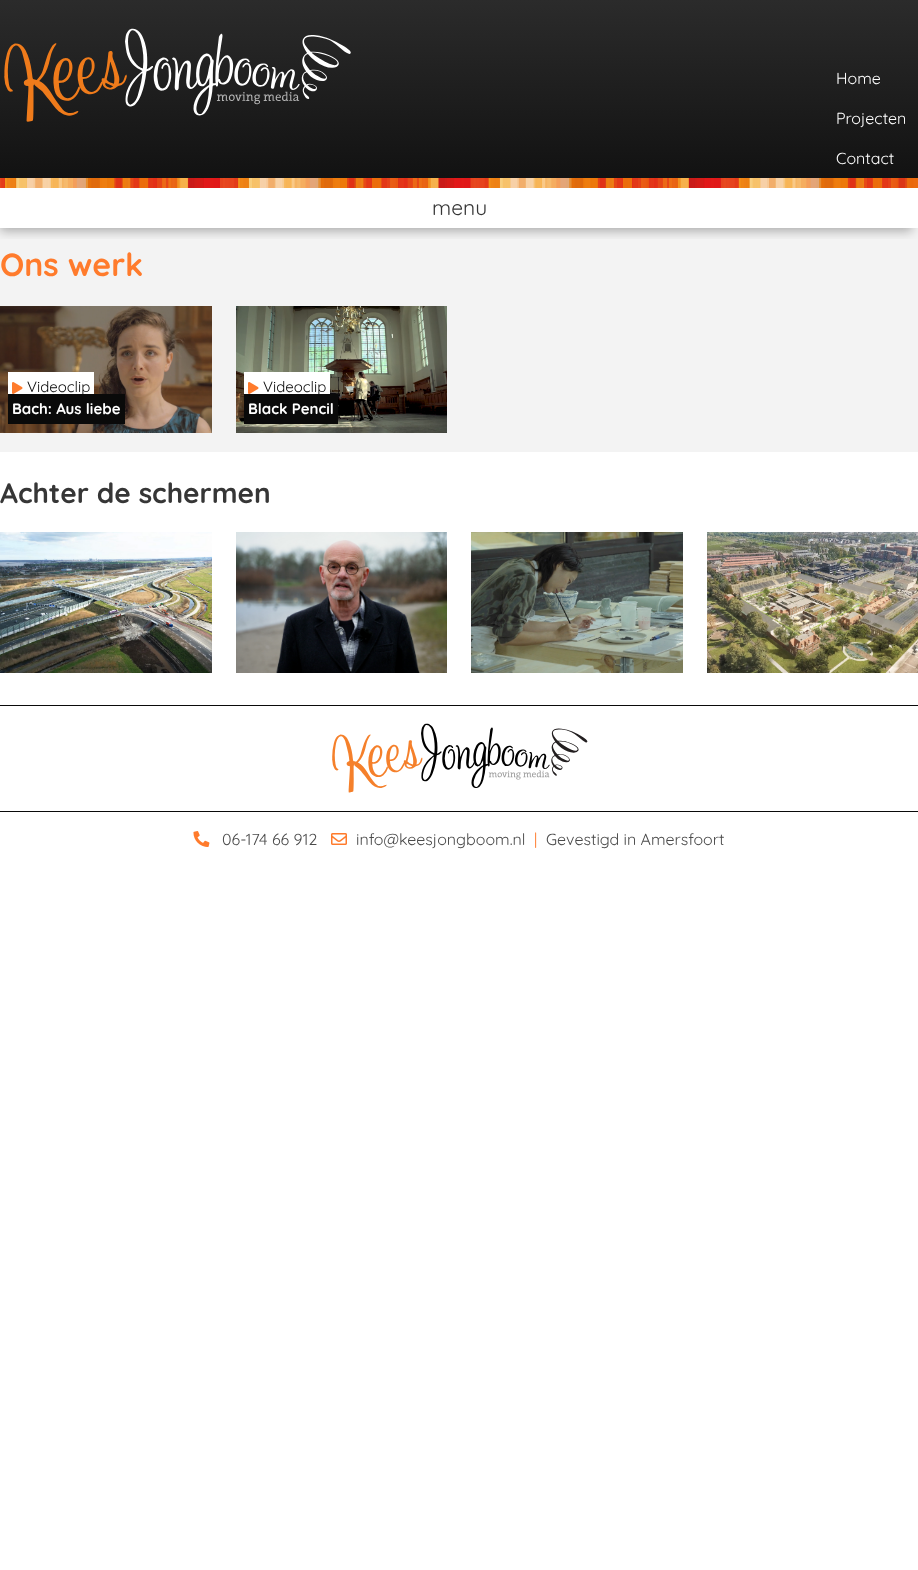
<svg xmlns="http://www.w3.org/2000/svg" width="918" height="1570">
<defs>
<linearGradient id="g1" gradientUnits="userSpaceOnUse" x1="459" y1="0" x2="459" y2="178"><stop offset="0" stop-color="#2b2b2b"/><stop offset="1" stop-color="#121212"/></linearGradient>
<clipPath id="clip1"><rect x="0" y="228" width="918" height="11"/></clipPath>
</defs>
<rect width="100%" height="100%" fill="#fff"/>
<rect width="918" height="178" fill="url(#g1)"/>
<image x="0" y="178" width="918" height="10" href="media/1.png"/>
<image x="4" y="28" width="347" height="94" href="media/2.png"/>
<text x="836" y="84" style="font-family:Quicksand;font-size:16px;fill:#fff">Home</text>
<text x="836" y="124" style="font-family:Quicksand;font-size:16px;fill:#fff">Projecten</text>
<text x="836" y="164" style="font-family:Quicksand;font-size:16px;fill:#fff">Contact</text>
<rect y="228" width="918" height="224" fill="#f3f3f3"/>
<g clip-path="url(#clip1)">
<rect y="197" width="912" height="34" fill="#0000004d" filter="blur(5.5px)"/>
</g>
<text x="432" y="215" style="font-family:Quicksand;font-size:21px;fill:#363636">menu</text>
<text x="0" y="276" style="font-family:Quicksand;font-size:32px;font-weight:bold;fill:#ff7b2c">Ons werk</text>
<image x="0" y="306" width="212" height="127" href="media/3.png"/>
<rect x="8" y="372" width="86" height="22" fill="#fff"/>
<image x="12" y="382" width="11" height="12" href="media/4.png"/>
<text x="27" y="392" style="font-family:Quicksand;font-size:15px;fill:#0a0a0a">Videoclip</text>
<rect x="8" y="394" width="117" height="30" fill="#0a0a0a"/>
<text x="12" y="414" style="font-family:Quicksand;font-size:15px;font-weight:bold;fill:#fff">Bach: Aus liebe</text>
<image x="236" y="306" width="211" height="127" href="media/5.png"/>
<rect x="244" y="372" width="86" height="22" fill="#fff"/>
<image x="248" y="382" width="11" height="12" href="media/4.png"/>
<text x="263" y="392" style="font-family:Quicksand;font-size:15px;fill:#0a0a0a">Videoclip</text>
<rect x="244" y="394" width="94" height="30" fill="#0a0a0a"/>
<text x="248" y="414" style="font-family:Quicksand;font-size:15px;font-weight:bold;fill:#fff">Black Pencil</text>
<text x="0" y="503" style="font-family:Quicksand;font-size:28px;font-weight:bold;fill:#363636">Achter de schermen</text>
<image x="0" y="532" width="212" height="141" href="media/6.png"/>
<image x="236" y="532" width="211" height="141" href="media/7.png"/>
<image x="471" y="532" width="212" height="141" href="media/8.png"/>
<image x="707" y="532" width="211" height="141" href="media/9.png"/>
<rect y="705" width="918" height="1" fill="#0a0a0a"/>
<image x="332" y="723" width="256" height="70" href="media/10.png"/>
<rect y="811" width="918" height="1" fill="#0a0a0a"/>
<image x="193" y="831" width="17" height="16" href="media/11.png"/>
<text x="222" y="845" style="font-family:Quicksand;font-size:16px;fill:#4a4a4a">06-174 66 912</text>
<image x="331" y="833" width="16" height="12" href="media/12.png"/>
<text x="356" y="845" style="font-family:Quicksand;font-size:16px;fill:#4a4a4a">info@keesjongboom.nl</text>
<text x="534" y="845" style="font-family:Quicksand;font-size:16px;fill:#ff7b2c">|</text>
<text x="546" y="845" style="font-family:Quicksand;font-size:16px;fill:#4a4a4a">Gevestigd in Amersfoort</text>
</svg>
